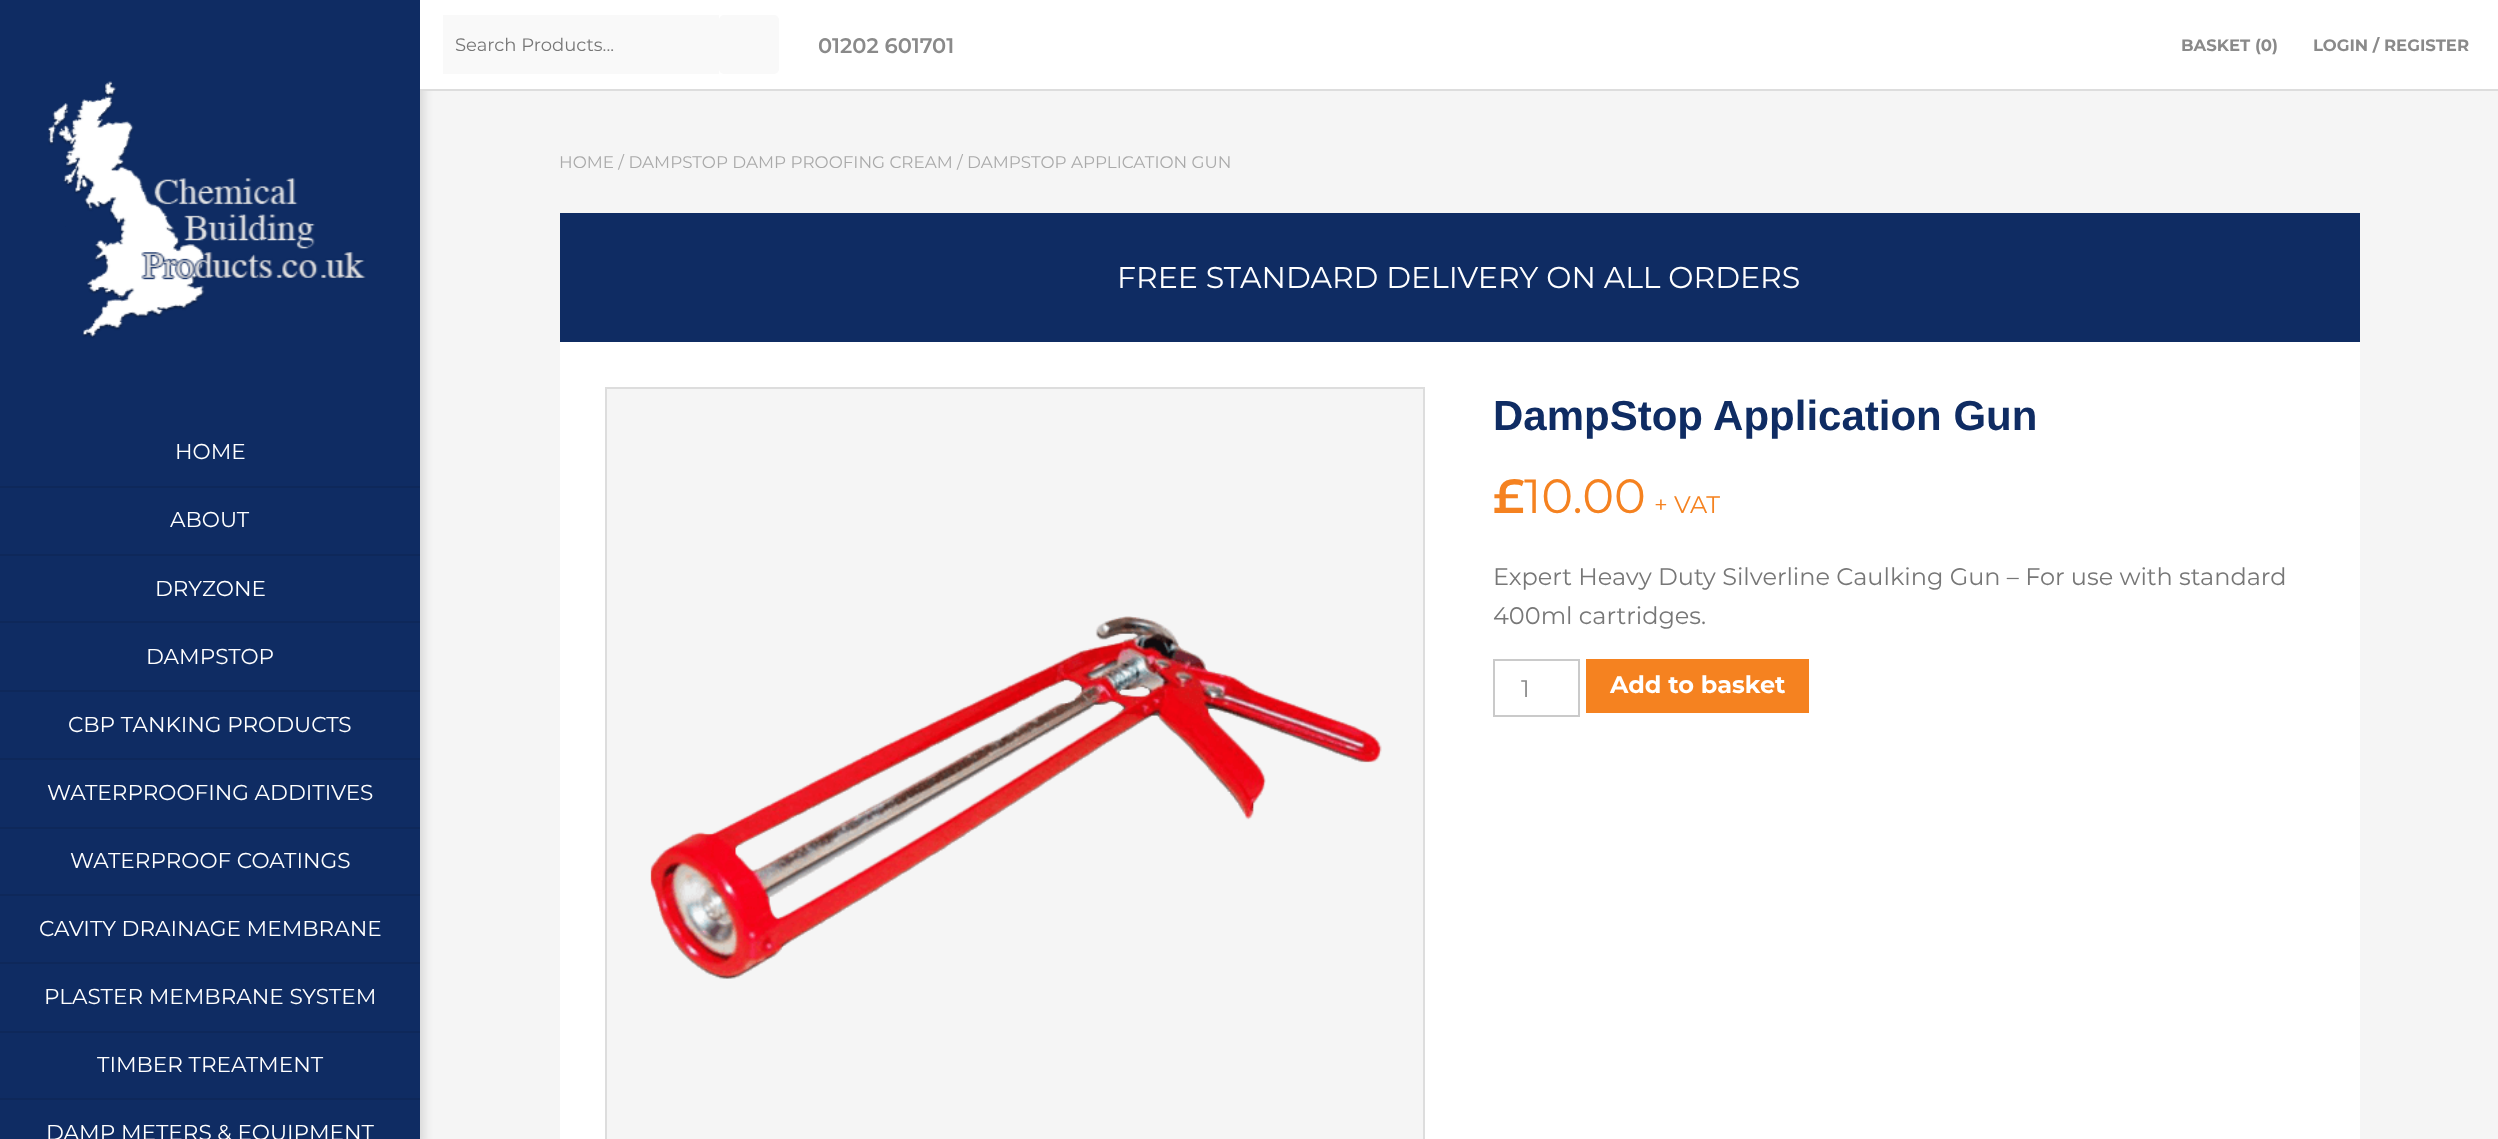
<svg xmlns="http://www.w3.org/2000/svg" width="2498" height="1139">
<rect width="100%" height="100%" fill="#f5f5f5"/>
<rect x="5" y="5" width="420" height="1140" fill="#0000001a" filter="blur(4px)"/>
<rect x="420" width="2078" height="89" fill="#fff"/>
<rect x="420" y="89" width="2078" height="2" fill="#ddd"/>
<rect x="443" y="15" width="276" height="59" fill="#f9f9f9"/>
<text x="455" y="51" style="font-family:Montserrat;font-size:18px;fill:#777">Search Products...</text>
<rect x="719" y="15" width="60" height="59" rx="5" fill="#f9f9f9"/>
<text x="818" y="53" style="font-family:Montserrat;font-size:21px;font-weight:600;fill:#8a8a8a">01202 601701</text>
<text x="2181" y="51" style="font-family:Montserrat;font-size:16.5px;font-weight:bold;fill:#8a8a8a">BASKET (0)</text>
<text x="2313" y="51" style="font-family:Montserrat;font-size:16.5px;font-weight:bold;fill:#8a8a8a">LOGIN / REGISTER</text>
<rect width="420" height="1139" fill="#0f2c63"/>
<image x="48" y="81" width="318" height="258" href="media/1.png"/>
<rect y="486" width="420" height="2" fill="#0e285a"/>
<text x="175" y="459" style="font-family:Montserrat;font-size:21.6px;fill:#fff">HOME</text>
<rect y="554" width="420" height="2" fill="#0e285a"/>
<text x="170" y="527" style="font-family:Montserrat;font-size:21.6px;fill:#fff">ABOUT</text>
<rect y="621" width="420" height="2" fill="#0e285a"/>
<text x="155" y="596" style="font-family:Montserrat;font-size:21.6px;fill:#fff">DRYZONE</text>
<rect y="690" width="420" height="2" fill="#0e285a"/>
<text x="146" y="664" style="font-family:Montserrat;font-size:21.6px;fill:#fff">DAMPSTOP</text>
<rect y="758" width="420" height="2" fill="#0e285a"/>
<text x="68" y="732" style="font-family:Montserrat;font-size:21.6px;fill:#fff">CBP TANKING PRODUCTS</text>
<rect y="827" width="420" height="2" fill="#0e285a"/>
<text x="47" y="800" style="font-family:Montserrat;font-size:21.6px;fill:#fff">WATERPROOFING ADDITIVES</text>
<rect y="894" width="420" height="2" fill="#0e285a"/>
<text x="70" y="868" style="font-family:Montserrat;font-size:21.6px;fill:#fff">WATERPROOF COATINGS</text>
<rect y="962" width="420" height="2" fill="#0e285a"/>
<text x="39" y="936" style="font-family:Montserrat;font-size:21.6px;fill:#fff">CAVITY DRAINAGE MEMBRANE</text>
<rect y="1031" width="420" height="2" fill="#0e285a"/>
<text x="44" y="1004" style="font-family:Montserrat;font-size:21.6px;fill:#fff">PLASTER MEMBRANE SYSTEM</text>
<rect y="1098" width="420" height="2" fill="#0e285a"/>
<text x="97" y="1072" style="font-family:Montserrat;font-size:21.6px;fill:#fff">TIMBER TREATMENT</text>
<text x="46" y="1140" style="font-family:Montserrat;font-size:21.6px;fill:#fff">DAMP METERS &amp; EQUIPMENT</text>
<text x="559" y="168" style="font-family:Montserrat;font-size:16.8px;fill:#aaa">HOME / DAMPSTOP DAMP PROOFING CREAM</text>
<text x="957" y="168" style="font-family:Montserrat;font-size:16.8px;fill:#aaa">/ DAMPSTOP APPLICATION GUN</text>
<rect x="560" y="213" width="1800" height="129" fill="#0f2c63"/>
<text x="1117" y="288" style="font-family:Montserrat;font-size:30px;fill:#fff">FREE STANDARD DELIVERY ON ALL ORDERS</text>
<rect x="560" y="342" width="1800" height="797" fill="#fff"/>
<rect x="606" y="388" width="818" height="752" fill="#f5f5f5" stroke="#ddd" stroke-width="2"/>
<image x="650" y="616" width="732" height="363" href="media/2.png"/>
<text x="1493" y="430" style="font-family:Liberation Sans;font-size:42px;font-weight:bold;fill:#0f2c63">DampStop Application Gun</text>
<text x="1493" y="513" style="font-family:Montserrat;font-size:48px;font-weight:600;fill:#f58220">£</text>
<text x="1524" y="513" style="font-family:Montserrat;font-size:48px;fill:#f58220">10.00</text>
<text x="1654" y="513" style="font-family:Montserrat;font-size:24px;fill:#f58220">+ VAT</text>
<text x="1493" y="585" style="font-family:Montserrat;font-size:24px;fill:#777">Expert Heavy Duty Silverline Caulking Gun – For use with standard</text>
<text x="1493" y="624" style="font-family:Montserrat;font-size:24px;fill:#777">400ml cartridges.</text>
<rect x="1494" y="660" width="85" height="56" fill="none" stroke="#cacaca" stroke-width="2"/>
<text x="1521" y="697" style="font-family:Montserrat;font-size:24px;fill:#8a8a8a">1</text>
<rect x="1586" y="659" width="223" height="54" fill="#f58220"/>
<text x="1610" y="693" style="font-family:Montserrat;font-size:24px;font-weight:bold;fill:#fff">Add to basket</text>
</svg>
